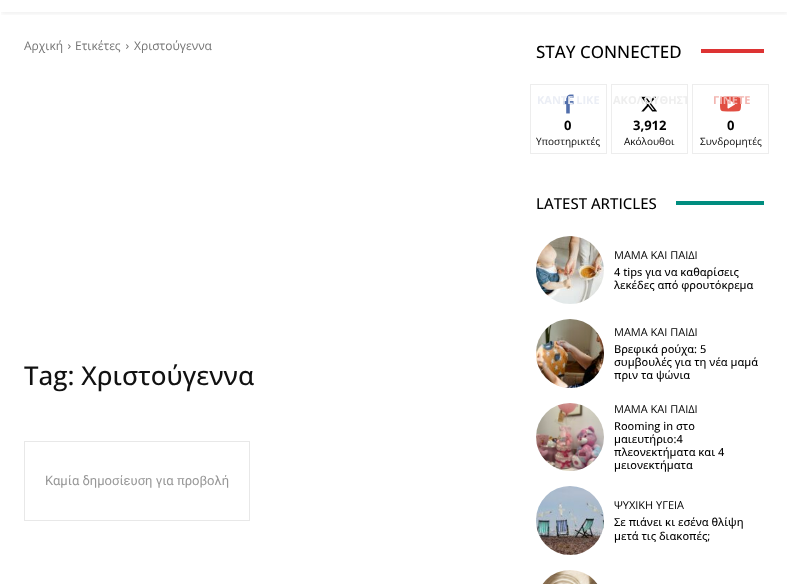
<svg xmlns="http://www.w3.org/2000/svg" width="787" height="584">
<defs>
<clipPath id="clip1"><rect x="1" y="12" width="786" height="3"/></clipPath>
<clipPath id="clip2"><rect x="612" y="85" width="75" height="68"/></clipPath>
</defs>
<rect width="100%" height="100%" fill="#fff"/>
<g clip-path="url(#clip1)">
<rect x="1" y="-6" width="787" height="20" fill="#0000000f" filter="blur(2px)"/>
</g>
<text x="24" y="50" style="font-family:Open Sans;font-size:12px;fill:#747474">Αρχική</text>
<image x="68" y="44" width="3" height="5" href="media/1.png"/>
<text x="75" y="50" style="font-family:Open Sans;font-size:12px;fill:#747474">Ετικέτες</text>
<image x="126" y="44" width="3" height="5" href="media/1.png"/>
<text x="134" y="50" style="font-family:Open Sans;font-size:12px;fill:#747474">Χριστούγεννα</text>
<text x="24" y="385" style="font-family:Open Sans;font-size:26px;font-weight:500;fill:#111">Tag: Χριστούγεννα</text>
<rect x="24.5" y="441.5" width="225" height="79" fill="none" stroke="#e8e8e8"/>
<text x="45" y="485" style="font-family:Roboto;font-size:13px;fill:#979797">Καμία δημοσίευση για προβολή</text>
<text x="536" y="58" style="font-family:Open Sans;font-size:17px;font-weight:500;fill:#000">STAY CONNECTED</text>
<rect x="701" y="49" width="63" height="4" fill="#d33"/>
<rect x="530.5" y="84.5" width="76" height="69" fill="none" stroke="#ededed"/>
<image x="563" y="94" width="11" height="20" href="media/2.png"/>
<text x="537" y="104" style="font-family:Open Sans;font-size:11px;font-weight:bold;fill:#ebeef5">ΚΑΝΤΕ LIKE</text>
<text x="564" y="130" style="font-family:Open Sans;font-size:13px;font-weight:bold;fill:#000">0</text>
<text x="536" y="145" style="font-family:Open Sans;font-size:10px;fill:#000">Υποστηρικτές</text>
<rect x="611.5" y="84.5" width="76" height="69" fill="none" stroke="#ededed"/>
<image x="641" y="96" width="16" height="16" href="media/3.png"/>
<g clip-path="url(#clip2)">
<text x="613" y="104" style="font-family:Open Sans;font-size:11px;font-weight:bold;fill:#eee">ΑΚΟΛΟΥΘΗΣΤ</text>
</g>
<text x="633" y="130" style="font-family:Open Sans;font-size:13px;font-weight:bold;fill:#000">3,912</text>
<text x="624" y="145" style="font-family:Open Sans;font-size:10px;fill:#000">Ακόλουθοι</text>
<rect x="692.5" y="84.5" width="76" height="69" fill="none" stroke="#ededed"/>
<image x="720" y="96" width="21" height="16" href="media/4.png"/>
<text x="713" y="104" style="font-family:Open Sans;font-size:11px;font-weight:bold;fill:#f3b5b0">ΓΙΝΕΤΕ</text>
<text x="727" y="130" style="font-family:Open Sans;font-size:13px;font-weight:bold;fill:#000">0</text>
<text x="700" y="145" style="font-family:Open Sans;font-size:10px;fill:#000">Συνδρομητές</text>
<text x="536" y="209" style="font-family:Open Sans;font-size:15px;font-weight:500;fill:#000">LATEST ARTICLES</text>
<rect x="676" y="201" width="88" height="4" fill="#008d7f"/>
<image x="536" y="236" width="68" height="68" href="media/5.png"/>
<text x="614" y="259" style="font-family:Open Sans;font-size:11px;fill:#000">ΜΑΜΑ ΚΑΙ ΠΑΙΔΙ</text>
<text x="614" y="276" style="font-family:Open Sans;font-size:11px;font-weight:500;fill:#000">4 tips για να καθαρίσεις</text>
<text x="614" y="289" style="font-family:Open Sans;font-size:11px;font-weight:500;fill:#000">λεκέδες από φρουτόκρεμα</text>
<image x="536" y="319" width="68" height="69" href="media/6.png"/>
<text x="614" y="336" style="font-family:Open Sans;font-size:11px;fill:#000">ΜΑΜΑ ΚΑΙ ΠΑΙΔΙ</text>
<text x="614" y="353" style="font-family:Open Sans;font-size:11px;font-weight:500;fill:#000">Βρεφικά ρούχα: 5</text>
<text x="614" y="366" style="font-family:Open Sans;font-size:11px;font-weight:500;fill:#000">συμβουλές για τη νέα μαμά</text>
<text x="614" y="379" style="font-family:Open Sans;font-size:11px;font-weight:500;fill:#000">πριν τα ψώνια</text>
<image x="536" y="403" width="68" height="68" href="media/7.png"/>
<text x="614" y="413" style="font-family:Open Sans;font-size:11px;fill:#000">ΜΑΜΑ ΚΑΙ ΠΑΙΔΙ</text>
<text x="614" y="430" style="font-family:Open Sans;font-size:11px;font-weight:500;fill:#000">Rooming in στο</text>
<text x="614" y="443" style="font-family:Open Sans;font-size:11px;font-weight:500;fill:#000">μαιευτήριο:4</text>
<text x="614" y="456" style="font-family:Open Sans;font-size:11px;font-weight:500;fill:#000">πλεονεκτήματα και 4</text>
<text x="614" y="469" style="font-family:Open Sans;font-size:11px;font-weight:500;fill:#000">μειονεκτήματα</text>
<image x="536" y="486" width="68" height="69" href="media/8.png"/>
<text x="614" y="509" style="font-family:Open Sans;font-size:11px;fill:#000">ΨΥΧΙΚΗ ΥΓΕΙΑ</text>
<text x="614" y="526" style="font-family:Open Sans;font-size:11px;font-weight:500;fill:#000">Σε πιάνει κι εσένα θλίψη</text>
<text x="614" y="540" style="font-family:Open Sans;font-size:11px;font-weight:500;fill:#000">μετά τις διακοπές;</text>
<image x="542" y="570" width="56" height="14" href="media/9.png"/>
</svg>
